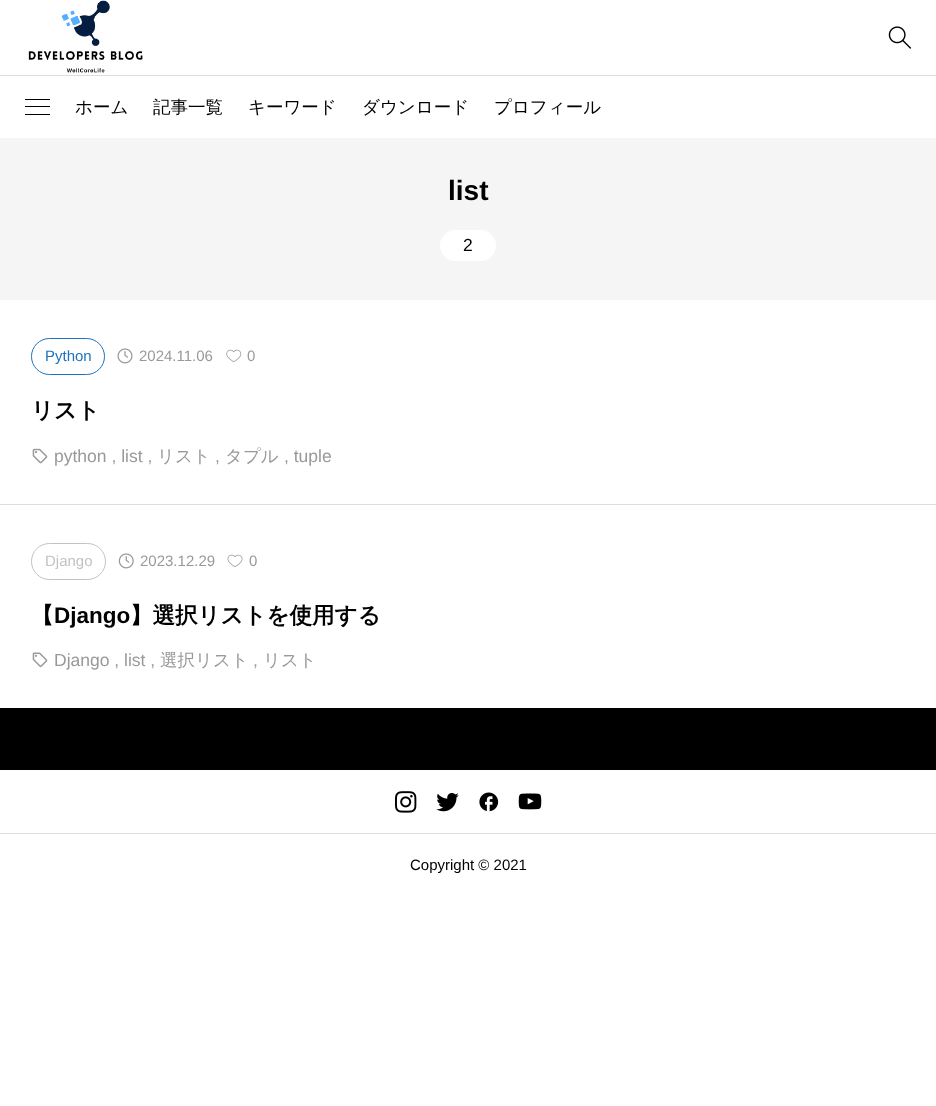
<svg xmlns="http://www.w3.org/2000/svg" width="936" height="1106">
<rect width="100%" height="100%" fill="#fff"/>
<image x="28" y="0" width="115" height="73" href="media/1.png"/>
<image x="888" y="26" width="24" height="23" href="media/2.png"/>
<rect y="75" width="936" height="1" fill="#ddd"/>
<rect x="25" y="99" width="25" height="1" fill="#000"/>
<rect x="25" y="106" width="25" height="1" fill="#000"/>
<rect x="25" y="114" width="25" height="1" fill="#000"/>
<text x="75" y="113" style="font-family:WenQuanYi Zen Hei;font-size:17.5px;font-weight:500;fill:#000">ホーム</text>
<text x="153" y="113" style="font-family:WenQuanYi Zen Hei;font-size:17.5px;font-weight:500;fill:#000">記事一覧</text>
<text x="248" y="113" style="font-family:WenQuanYi Zen Hei;font-size:17.5px;font-weight:500;fill:#000">キーワード</text>
<text x="362" y="113" style="font-family:WenQuanYi Zen Hei;font-size:17.5px;font-weight:500;fill:#000">ダウンロード</text>
<text x="494" y="113" style="font-family:WenQuanYi Zen Hei;font-size:17.5px;font-weight:500;fill:#000">プロフィール</text>
<rect y="138" width="936" height="162" fill="#f5f5f5"/>
<text x="448" y="200" style="font-family:Liberation Sans;font-size:28px;font-weight:bold;fill:#000">list</text>
<rect x="440" y="230" width="56" height="31" rx="15.5" fill="#fff"/>
<text x="463" y="251" style="font-family:Liberation Sans;font-size:17.5px;fill:#000">2</text>
<rect y="504" width="936" height="1" fill="#ddd"/>
<rect x="31.5" y="338.5" width="73" height="36" rx="18" fill="none" stroke="#1e73be"/>
<text x="45" y="361" style="font-family:Liberation Sans;font-size:15px;fill:#1e73be">Python</text>
<image x="117" y="348" width="16" height="16" href="media/3.png"/>
<text x="139" y="361" style="font-family:Liberation Sans;font-size:15px;fill:#999">2024.11.06</text>
<image x="226" y="349" width="16" height="14" href="media/4.png"/>
<text x="247" y="361" style="font-family:Liberation Sans;font-size:15px;fill:#999">0</text>
<text x="31" y="418" style="font-family:WenQuanYi Zen Hei;font-size:22.5px;font-weight:bold;fill:#000">リスト</text>
<image x="32" y="448" width="16" height="16" href="media/5.png"/>
<text x="54" y="462" style="font-family:Liberation Sans;font-size:17.5px;fill:#999">python , list ,</text>
<text x="157" y="462" style="font-family:WenQuanYi Zen Hei;font-size:17.5px;font-weight:500;fill:#999">リスト</text>
<text x="215" y="462" style="font-family:Liberation Sans;font-size:17.5px;fill:#999">,</text>
<text x="225" y="462" style="font-family:WenQuanYi Zen Hei;font-size:17.5px;font-weight:500;fill:#999">タプル</text>
<text x="284" y="462" style="font-family:Liberation Sans;font-size:17.5px;fill:#999">, tuple</text>
<rect x="31.5" y="543.5" width="74" height="36" rx="18" fill="none" stroke="#c3c3c3"/>
<text x="45" y="566" style="font-family:Liberation Sans;font-size:15px;fill:#c3c3c3">Django</text>
<image x="118" y="553" width="16" height="16" href="media/6.png"/>
<text x="140" y="566" style="font-family:Liberation Sans;font-size:15px;fill:#999">2023.12.29</text>
<image x="227" y="554" width="16" height="13" href="media/7.png"/>
<text x="249" y="566" style="font-family:Liberation Sans;font-size:15px;fill:#999">0</text>
<text x="31" y="623" style="font-family:WenQuanYi Zen Hei;font-size:22.5px;font-weight:bold;fill:#000">【</text>
<text x="54" y="623" style="font-family:Liberation Sans;font-size:22.5px;font-weight:bold;fill:#000">Django</text>
<text x="130" y="623" style="font-family:WenQuanYi Zen Hei;font-size:22.5px;font-weight:bold;fill:#000">】選択リストを使用する</text>
<image x="32" y="652" width="16" height="16" href="media/8.png"/>
<text x="54" y="666" style="font-family:Liberation Sans;font-size:17.5px;fill:#999">Django , list ,</text>
<text x="160" y="666" style="font-family:WenQuanYi Zen Hei;font-size:17.5px;font-weight:500;fill:#999">選択リスト</text>
<text x="253" y="666" style="font-family:Liberation Sans;font-size:17.5px;fill:#999">,</text>
<text x="263" y="666" style="font-family:WenQuanYi Zen Hei;font-size:17.5px;font-weight:500;fill:#999">リスト</text>
<rect y="708" width="936" height="62" fill="#000"/>
<image x="395" y="791" width="22" height="22" href="media/9.png"/>
<image x="436" y="793" width="23" height="19" href="media/10.png"/>
<image x="479" y="792" width="20" height="20" href="media/11.png"/>
<image x="518" y="793" width="24" height="17" href="media/12.png"/>
<rect y="833" width="936" height="1" fill="#ddd"/>
<text x="410" y="870" style="font-family:Liberation Sans;font-size:15px;fill:#000">Copyright © 2021</text>
</svg>
